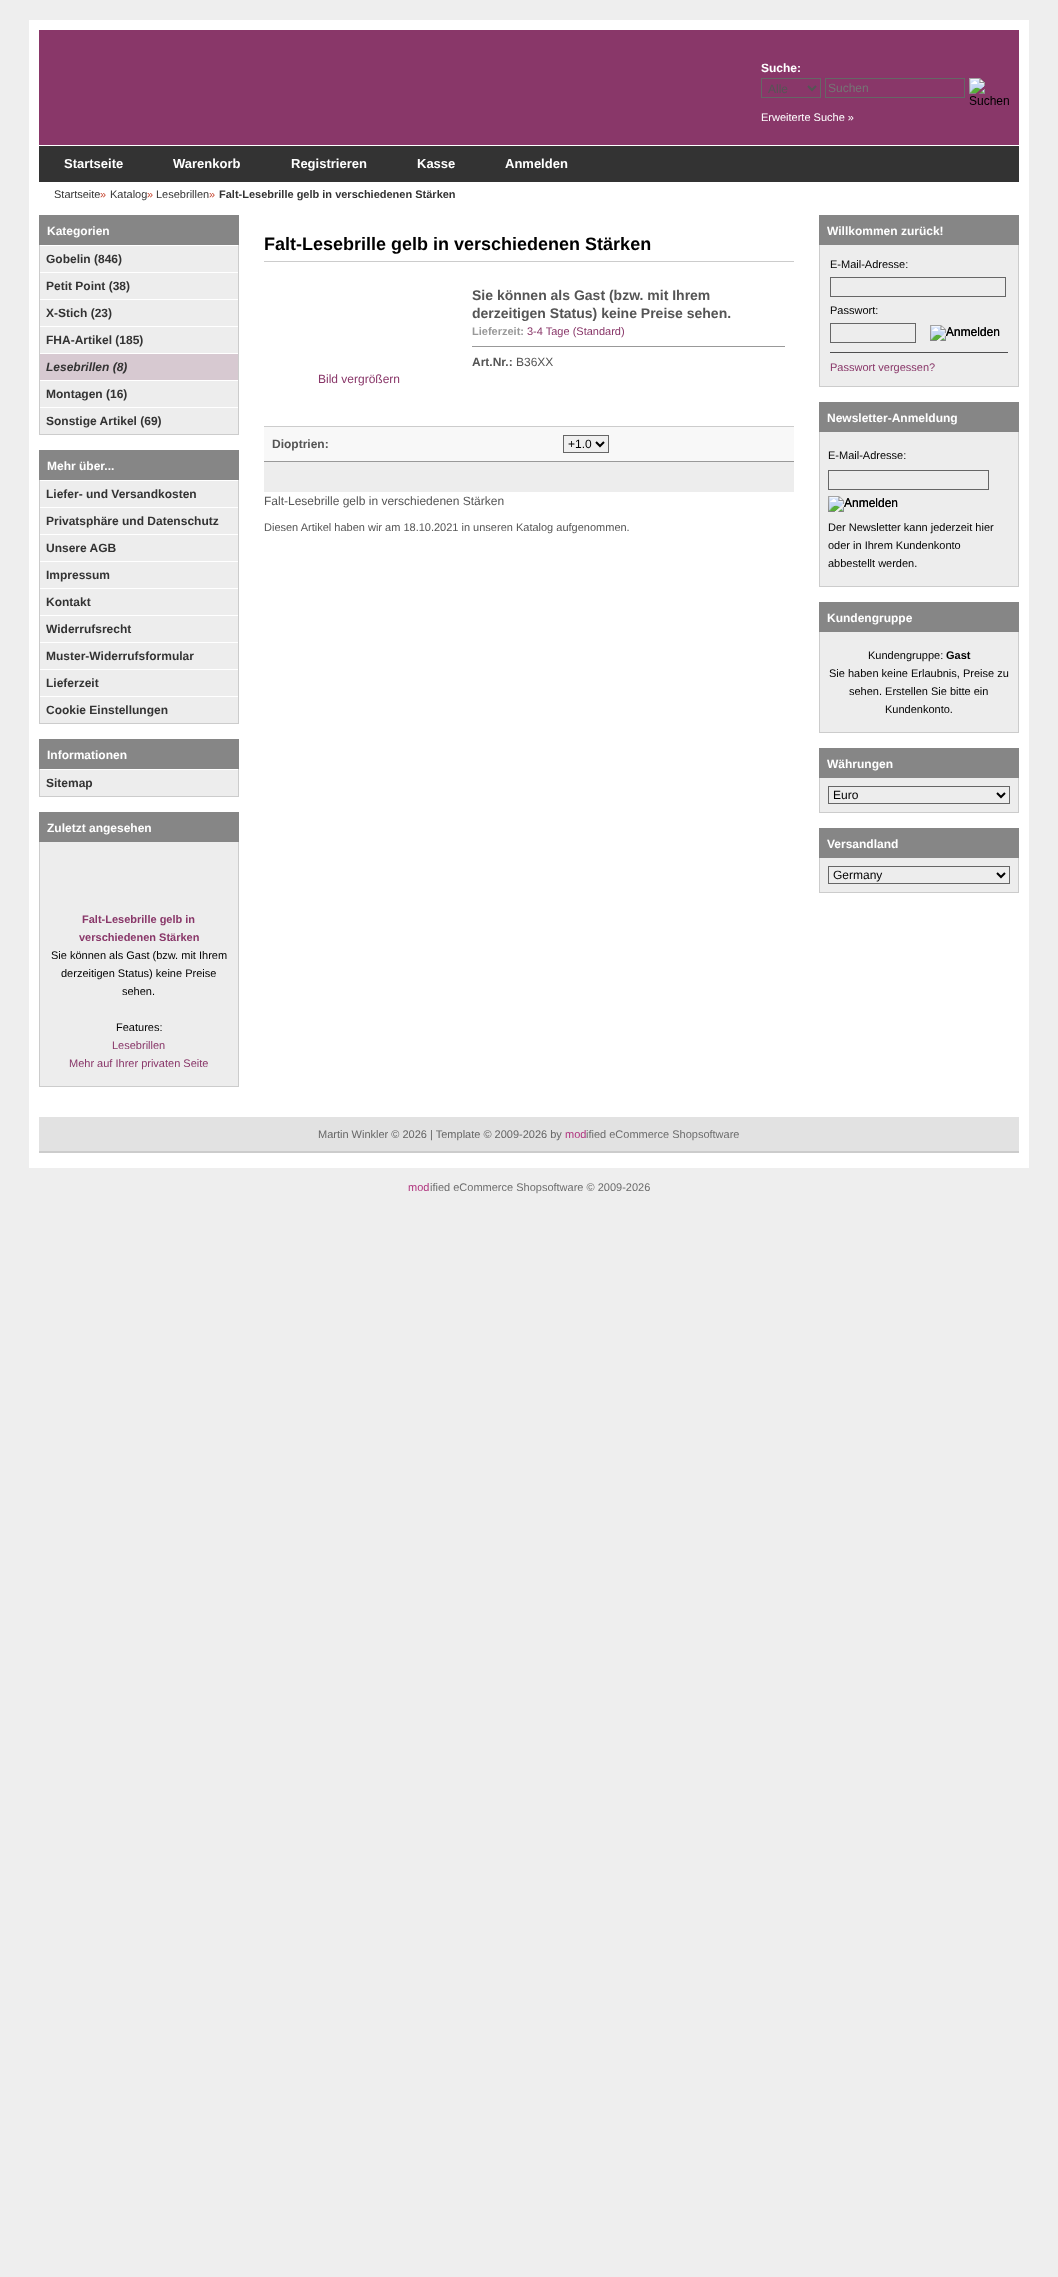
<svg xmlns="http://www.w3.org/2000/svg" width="1058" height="2277">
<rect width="100%" height="100%" fill="#eee"/>
<rect x="39" y="182" width="980" height="976" fill="#fff"/>
<rect x="1019" y="20" width="10" height="1138" fill="#fff"/>
<rect x="39" y="1158" width="990" height="10" fill="#fff"/>
<rect x="29" y="20" width="10" height="1148" fill="#fff"/>
<rect x="39" y="30" width="980" height="115" fill="#893769"/>
<rect x="39" y="20" width="980" height="10" fill="#fff"/>
<rect x="39" y="145" width="980" height="1" fill="#fff"/>
<text x="761" y="72" style="font-family:Liberation Sans;font-size:12px;font-weight:bold;fill:#fff">Suche:</text>
<rect x="761.5" y="78.5" width="59" height="19" fill="none" stroke="#666"/>
<path d="M808 86l4 4l4-4" fill="none" stroke="#555" stroke-width="2"/>
<text x="768" y="93" style="font-family:Liberation Sans;font-size:12px;fill:#555">Alle</text>
<rect x="825.5" y="78.5" width="139" height="19" fill="none" stroke="#666"/>
<text x="828" y="92" style="font-family:Liberation Sans;font-size:12px;fill:#757575">Suchen</text>
<image x="969" y="78" width="40" height="27" href="media/1.png"/>
<text x="761" y="121" style="font-family:Liberation Sans;font-size:11px;fill:#fff">Erweiterte Suche »</text>
<rect x="39" y="146" width="980" height="36" fill="#333"/>
<text x="64" y="168" style="font-family:Liberation Sans;font-size:13px;font-weight:bold;fill:#fff">Startseite</text>
<text x="173" y="168" style="font-family:Liberation Sans;font-size:13px;font-weight:bold;fill:#fff">Warenkorb</text>
<text x="291" y="168" style="font-family:Liberation Sans;font-size:13px;font-weight:bold;fill:#fff">Registrieren</text>
<text x="417" y="168" style="font-family:Liberation Sans;font-size:13px;font-weight:bold;fill:#fff">Kasse</text>
<text x="505" y="168" style="font-family:Liberation Sans;font-size:13px;font-weight:bold;fill:#fff">Anmelden</text>
<text x="54" y="198" style="font-family:Liberation Sans;font-size:11px;fill:#333">Startseite</text>
<text x="100" y="198" style="font-family:Liberation Sans;font-size:11px;fill:#c64934">»</text>
<text x="110" y="198" style="font-family:Liberation Sans;font-size:11px;fill:#333">Katalog</text>
<text x="147" y="198" style="font-family:Liberation Sans;font-size:11px;fill:#c64934">»</text>
<text x="156" y="198" style="font-family:Liberation Sans;font-size:11px;fill:#333">Lesebrillen</text>
<text x="209" y="198" style="font-family:Liberation Sans;font-size:11px;fill:#c64934">»</text>
<text x="219" y="198" style="font-family:Liberation Sans;font-size:11px;font-weight:bold;fill:#333">Falt-Lesebrille gelb in verschiedenen Stärken</text>
<rect x="39" y="215" width="200" height="30" fill="#868686"/>
<text x="47" y="235" style="font-family:Liberation Sans;font-size:12px;font-weight:bold;fill:#fff">Kategorien</text>
<rect x="40" y="246" width="198" height="188" fill="#ededed"/>
<rect x="238" y="245" width="1" height="190" fill="#ccc"/>
<rect x="39" y="434" width="200" height="1" fill="#ccc"/>
<rect x="39" y="245" width="1" height="190" fill="#ccc"/>
<text x="46" y="263" style="font-family:Liberation Sans;font-size:12px;font-weight:bold;fill:#333">Gobelin (846)</text>
<rect x="40" y="272" width="198" height="1" fill="#fff"/>
<text x="46" y="290" style="font-family:Liberation Sans;font-size:12px;font-weight:bold;fill:#333">Petit Point (38)</text>
<rect x="40" y="299" width="198" height="1" fill="#fff"/>
<text x="46" y="317" style="font-family:Liberation Sans;font-size:12px;font-weight:bold;fill:#333">X-Stich (23)</text>
<rect x="40" y="326" width="198" height="1" fill="#fff"/>
<text x="46" y="344" style="font-family:Liberation Sans;font-size:12px;font-weight:bold;fill:#333">FHA-Artikel (185)</text>
<rect x="40" y="353" width="198" height="1" fill="#fff"/>
<rect x="40" y="354" width="198" height="26" fill="#d7c9d1"/>
<text x="46" y="371" style="font-family:Liberation Sans;font-size:12px;font-weight:bold;font-style:italic;fill:#333">Lesebrillen (8)</text>
<rect x="40" y="380" width="198" height="1" fill="#fff"/>
<text x="46" y="398" style="font-family:Liberation Sans;font-size:12px;font-weight:bold;fill:#333">Montagen (16)</text>
<rect x="40" y="407" width="198" height="1" fill="#fff"/>
<text x="46" y="425" style="font-family:Liberation Sans;font-size:12px;font-weight:bold;fill:#333">Sonstige Artikel (69)</text>
<rect x="39" y="450" width="200" height="30" fill="#868686"/>
<text x="47" y="470" style="font-family:Liberation Sans;font-size:12px;font-weight:bold;fill:#fff">Mehr über...</text>
<rect x="40" y="481" width="198" height="242" fill="#ededed"/>
<rect x="238" y="480" width="1" height="244" fill="#ccc"/>
<rect x="39" y="723" width="200" height="1" fill="#ccc"/>
<rect x="39" y="480" width="1" height="244" fill="#ccc"/>
<text x="46" y="498" style="font-family:Liberation Sans;font-size:12px;font-weight:bold;fill:#333">Liefer- und Versandkosten</text>
<rect x="40" y="507" width="198" height="1" fill="#fff"/>
<text x="46" y="525" style="font-family:Liberation Sans;font-size:12px;font-weight:bold;fill:#333">Privatsphäre und Datenschutz</text>
<rect x="40" y="534" width="198" height="1" fill="#fff"/>
<text x="46" y="552" style="font-family:Liberation Sans;font-size:12px;font-weight:bold;fill:#333">Unsere AGB</text>
<rect x="40" y="561" width="198" height="1" fill="#fff"/>
<text x="46" y="579" style="font-family:Liberation Sans;font-size:12px;font-weight:bold;fill:#333">Impressum</text>
<rect x="40" y="588" width="198" height="1" fill="#fff"/>
<text x="46" y="606" style="font-family:Liberation Sans;font-size:12px;font-weight:bold;fill:#333">Kontakt</text>
<rect x="40" y="615" width="198" height="1" fill="#fff"/>
<text x="46" y="633" style="font-family:Liberation Sans;font-size:12px;font-weight:bold;fill:#333">Widerrufsrecht</text>
<rect x="40" y="642" width="198" height="1" fill="#fff"/>
<text x="46" y="660" style="font-family:Liberation Sans;font-size:12px;font-weight:bold;fill:#333">Muster-Widerrufsformular</text>
<rect x="40" y="669" width="198" height="1" fill="#fff"/>
<text x="46" y="687" style="font-family:Liberation Sans;font-size:12px;font-weight:bold;fill:#333">Lieferzeit</text>
<rect x="40" y="696" width="198" height="1" fill="#fff"/>
<text x="46" y="714" style="font-family:Liberation Sans;font-size:12px;font-weight:bold;fill:#333">Cookie Einstellungen</text>
<rect x="39" y="739" width="200" height="30" fill="#868686"/>
<text x="47" y="759" style="font-family:Liberation Sans;font-size:12px;font-weight:bold;fill:#fff">Informationen</text>
<rect x="40" y="770" width="198" height="26" fill="#ededed"/>
<rect x="238" y="769" width="1" height="28" fill="#ccc"/>
<rect x="39" y="796" width="200" height="1" fill="#ccc"/>
<rect x="39" y="769" width="1" height="28" fill="#ccc"/>
<text x="46" y="787" style="font-family:Liberation Sans;font-size:12px;font-weight:bold;fill:#333">Sitemap</text>
<rect x="39" y="812" width="200" height="30" fill="#868686"/>
<text x="47" y="832" style="font-family:Liberation Sans;font-size:12px;font-weight:bold;fill:#fff">Zuletzt angesehen</text>
<rect x="40" y="842" width="198" height="244" fill="#ededed"/>
<rect x="238" y="842" width="1" height="245" fill="#ccc"/>
<rect x="39" y="1086" width="200" height="1" fill="#ccc"/>
<rect x="39" y="842" width="1" height="245" fill="#ccc"/>
<text x="82" y="923" style="font-family:Liberation Sans;font-size:11px;font-weight:bold;fill:#893769">Falt-Lesebrille gelb in</text>
<text x="79" y="941" style="font-family:Liberation Sans;font-size:11px;font-weight:bold;fill:#893769">verschiedenen Stärken</text>
<text x="51" y="959" style="font-family:Liberation Sans;font-size:11px;fill:#000">Sie können als Gast (bzw. mit Ihrem</text>
<text x="61" y="977" style="font-family:Liberation Sans;font-size:11px;fill:#000">derzeitigen Status) keine Preise</text>
<text x="122" y="995" style="font-family:Liberation Sans;font-size:11px;fill:#000">sehen.</text>
<text x="116" y="1031" style="font-family:Liberation Sans;font-size:11px;fill:#000">Features:</text>
<text x="112" y="1049" style="font-family:Liberation Sans;font-size:11px;fill:#893769">Lesebrillen</text>
<text x="69" y="1067" style="font-family:Liberation Sans;font-size:11px;fill:#893769">Mehr auf Ihrer privaten Seite</text>
<rect x="264" y="261" width="530" height="1" fill="#ccc"/>
<text x="264" y="250" style="font-family:Liberation Sans;font-size:18px;font-weight:bold;fill:#000">Falt-Lesebrille gelb in verschiedenen Stärken</text>
<text x="472" y="300" style="font-family:Liberation Sans;font-size:14px;font-weight:bold;fill:#555">Sie können als Gast (bzw. mit Ihrem</text>
<text x="472" y="318" style="font-family:Liberation Sans;font-size:14px;font-weight:bold;fill:#555">derzeitigen Status) keine Preise sehen.</text>
<text x="472" y="335" style="font-family:Liberation Sans;font-size:11px;font-weight:bold;fill:#999">Lieferzeit:</text>
<text x="527" y="335" style="font-family:Liberation Sans;font-size:11px;fill:#893769">3-4 Tage (Standard)</text>
<rect x="472" y="346" width="313" height="1" fill="#999"/>
<text x="472" y="366" style="font-family:Liberation Sans;font-size:12px;font-weight:bold;fill:#555">Art.Nr.:</text>
<text x="516" y="366" style="font-family:Liberation Sans;font-size:12px;fill:#555">B36XX</text>
<text x="318" y="383" style="font-family:Liberation Sans;font-size:12px;fill:#893769">Bild vergrößern</text>
<rect x="264" y="427" width="530" height="34" fill="#f8f8f8"/>
<rect x="264" y="426" width="530" height="1" fill="#ccc"/>
<text x="272" y="448" style="font-family:Liberation Sans;font-size:12px;font-weight:bold;fill:#555">Dioptrien:</text>
<rect x="563.5" y="435.5" width="45" height="17" fill="#efefef" stroke="#666"/>
<path d="M596 442l4 4l4-4" fill="none" stroke="#000" stroke-width="2"/>
<text x="568" y="448" style="font-family:Liberation Sans;font-size:12px;fill:#000">+1.0</text>
<rect x="264" y="462" width="530" height="30" fill="#ededed"/>
<rect x="264" y="461" width="530" height="1" fill="#999"/>
<text x="264" y="505" style="font-family:Liberation Sans;font-size:12px;fill:#555">Falt-Lesebrille gelb in verschiedenen Stärken</text>
<text x="264" y="531" style="font-family:Liberation Sans;font-size:11px;fill:#555">Diesen Artikel haben wir am 18.10.2021 in unseren Katalog aufgenommen.</text>
<rect x="819" y="215" width="200" height="30" fill="#868686"/>
<text x="827" y="235" style="font-family:Liberation Sans;font-size:12px;font-weight:bold;fill:#fff">Willkommen zurück!</text>
<rect x="820" y="245" width="198" height="141" fill="#ededed"/>
<rect x="1018" y="245" width="1" height="142" fill="#ccc"/>
<rect x="819" y="386" width="200" height="1" fill="#ccc"/>
<rect x="819" y="245" width="1" height="142" fill="#ccc"/>
<text x="830" y="268" style="font-family:Liberation Sans;font-size:11px;fill:#000">E-Mail-Adresse:</text>
<rect x="830.5" y="277.5" width="175" height="19" fill="none" stroke="#666"/>
<text x="830" y="314" style="font-family:Liberation Sans;font-size:11px;fill:#000">Passwort:</text>
<rect x="830.5" y="323.5" width="85" height="19" fill="none" stroke="#666"/>
<image x="930" y="325" width="70" height="16" href="media/2.png"/>
<text x="946" y="336" style="font-family:Liberation Sans;font-size:12px;fill:#000">Anmelden</text>
<rect x="830" y="352" width="178" height="1" fill="#4e4e4f"/>
<text x="830" y="371" style="font-family:Liberation Sans;font-size:11px;fill:#893769">Passwort vergessen?</text>
<rect x="819" y="402" width="200" height="30" fill="#868686"/>
<text x="827" y="422" style="font-family:Liberation Sans;font-size:12px;font-weight:bold;fill:#fff">Newsletter-Anmeldung</text>
<rect x="820" y="432" width="198" height="154" fill="#ededed"/>
<rect x="1018" y="432" width="1" height="155" fill="#ccc"/>
<rect x="819" y="586" width="200" height="1" fill="#ccc"/>
<rect x="819" y="432" width="1" height="155" fill="#ccc"/>
<text x="828" y="459" style="font-family:Liberation Sans;font-size:11px;fill:#000">E-Mail-Adresse:</text>
<rect x="828.5" y="470.5" width="160" height="19" fill="none" stroke="#666"/>
<image x="828" y="496" width="70" height="16" href="media/3.png"/>
<text x="844" y="507" style="font-family:Liberation Sans;font-size:12px;fill:#000">Anmelden</text>
<text x="828" y="531" style="font-family:Liberation Sans;font-size:11px;fill:#000">Der Newsletter kann jederzeit hier</text>
<text x="828" y="549" style="font-family:Liberation Sans;font-size:11px;fill:#000">oder in Ihrem Kundenkonto</text>
<text x="828" y="567" style="font-family:Liberation Sans;font-size:11px;fill:#000">abbestellt werden.</text>
<rect x="819" y="602" width="200" height="30" fill="#868686"/>
<text x="827" y="622" style="font-family:Liberation Sans;font-size:12px;font-weight:bold;fill:#fff">Kundengruppe</text>
<rect x="820" y="632" width="198" height="100" fill="#ededed"/>
<rect x="1018" y="632" width="1" height="101" fill="#ccc"/>
<rect x="819" y="732" width="200" height="1" fill="#ccc"/>
<rect x="819" y="632" width="1" height="101" fill="#ccc"/>
<text x="868" y="659" style="font-family:Liberation Sans;font-size:11px;fill:#000">Kundengruppe:</text>
<text x="946" y="659" style="font-family:Liberation Sans;font-size:11px;font-weight:bold;fill:#000">Gast</text>
<text x="829" y="677" style="font-family:Liberation Sans;font-size:11px;fill:#000">Sie haben keine Erlaubnis, Preise zu</text>
<text x="849" y="695" style="font-family:Liberation Sans;font-size:11px;fill:#000">sehen. Erstellen Sie bitte ein</text>
<text x="885" y="713" style="font-family:Liberation Sans;font-size:11px;fill:#000">Kundenkonto.</text>
<rect x="819" y="748" width="200" height="30" fill="#868686"/>
<text x="827" y="768" style="font-family:Liberation Sans;font-size:12px;font-weight:bold;fill:#fff">Währungen</text>
<rect x="820" y="778" width="198" height="34" fill="#ededed"/>
<rect x="1018" y="778" width="1" height="35" fill="#ccc"/>
<rect x="819" y="812" width="200" height="1" fill="#ccc"/>
<rect x="819" y="778" width="1" height="35" fill="#ccc"/>
<rect x="828.5" y="786.5" width="181" height="17" fill="none" stroke="#666"/>
<path d="M997 793l4 4l4-4" fill="none" stroke="#000" stroke-width="2"/>
<text x="833" y="799" style="font-family:Liberation Sans;font-size:12px;fill:#000">Euro</text>
<rect x="819" y="828" width="200" height="30" fill="#868686"/>
<text x="827" y="848" style="font-family:Liberation Sans;font-size:12px;font-weight:bold;fill:#fff">Versandland</text>
<rect x="820" y="858" width="198" height="34" fill="#ededed"/>
<rect x="1018" y="858" width="1" height="35" fill="#ccc"/>
<rect x="819" y="892" width="200" height="1" fill="#ccc"/>
<rect x="819" y="858" width="1" height="35" fill="#ccc"/>
<rect x="828.5" y="866.5" width="181" height="17" fill="none" stroke="#666"/>
<path d="M997 873l4 4l4-4" fill="none" stroke="#000" stroke-width="2"/>
<text x="833" y="879" style="font-family:Liberation Sans;font-size:12px;fill:#000">Germany</text>
<rect x="39" y="1117" width="980" height="34" fill="#e2e2e2"/>
<rect x="39" y="1151" width="980" height="2" fill="#ccc"/>
<text x="318" y="1138" style="font-family:Liberation Sans;font-size:11px;fill:#666">Martin Winkler © 2026 | Template © 2009-2026 by</text>
<text x="565" y="1138" style="font-family:Liberation Sans;font-size:11px;fill:#b0347e">mod</text>
<text x="586" y="1138" style="font-family:Liberation Sans;font-size:11px;fill:#6d6d6d">ified eCommerce Shopsoftware</text>
<text x="408" y="1191" style="font-family:Liberation Sans;font-size:11px;fill:#b0347e">mod</text>
<text x="430" y="1191" style="font-family:Liberation Sans;font-size:11px;fill:#6d6d6d">ified eCommerce Shopsoftware © 2009-2026</text>
</svg>
